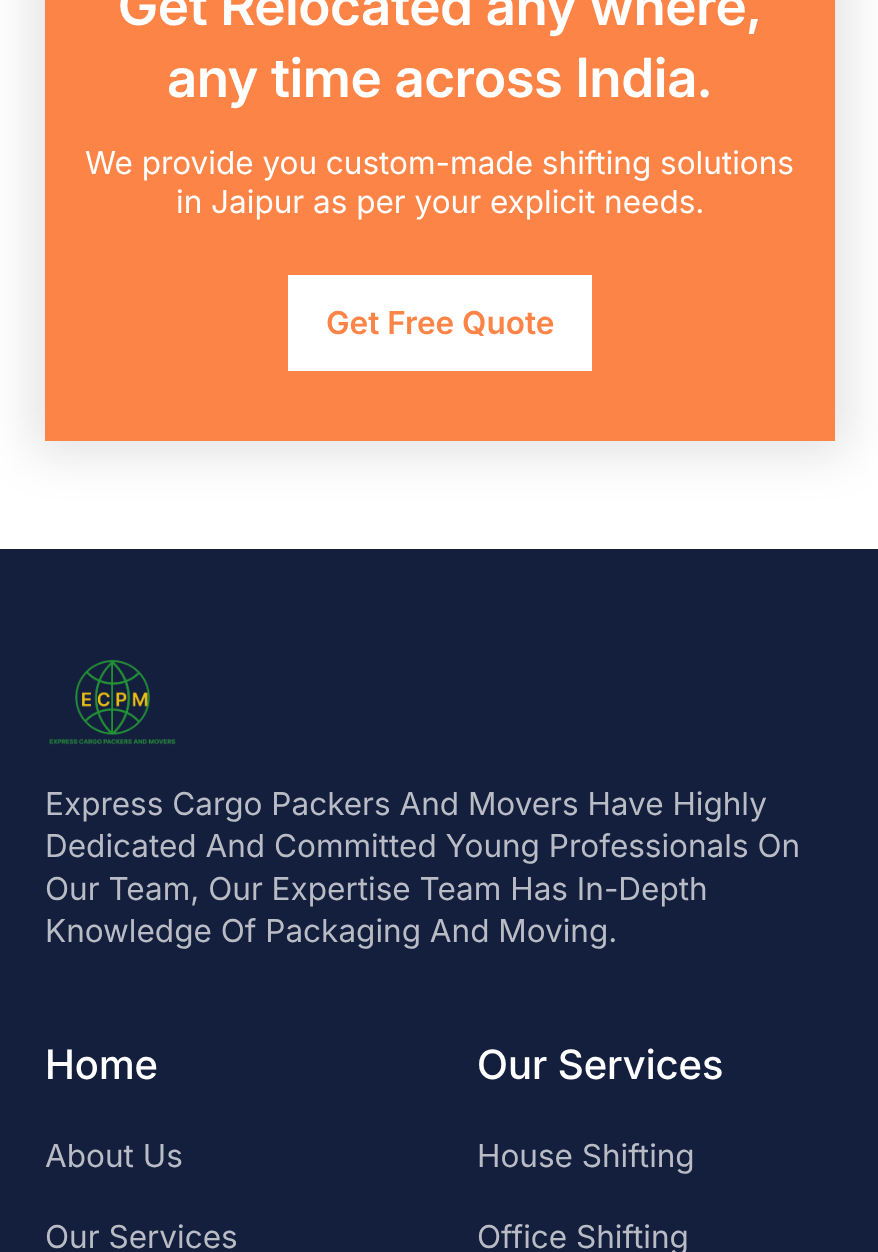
<svg xmlns="http://www.w3.org/2000/svg" width="878" height="1252">
<rect width="100%" height="100%" fill="#fff"/>
<rect x="32" y="-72" width="816" height="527" fill="#0000001c" filter="blur(24px)"/>
<rect x="45" width="790" height="441" fill="#fd8447"/>
<text x="118" y="25" style="font-family:Inter;font-size:54px;font-weight:600;fill:#fff">Get Relocated any where,</text>
<text x="167" y="97" style="font-family:Inter;font-size:54px;font-weight:600;fill:#fff">any time across India.</text>
<text x="85" y="174" style="font-family:Inter;font-size:31.5px;fill:#fff">We provide you custom-made shifting solutions</text>
<text x="176" y="213" style="font-family:Inter;font-size:31.5px;fill:#fff">in Jaipur as per your explicit needs.</text>
<rect x="288" y="275" width="304" height="96" fill="#fff"/>
<text x="326" y="334" style="font-family:'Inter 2';font-size:31.5px;font-weight:600;fill:#fd8447">Get Free Quote</text>
<rect y="549" width="878" height="703" fill="#141f3d"/>
<image x="49" y="659" width="127" height="86" href="media/1.png"/>
<text x="45" y="815" style="font-family:Inter;font-size:31.5px;fill:#b9bcc5">Express Cargo Packers And Movers Have Highly</text>
<text x="45" y="857" style="font-family:Inter;font-size:31.5px;fill:#b9bcc5">Dedicated And Committed Young Professionals On</text>
<text x="45" y="900" style="font-family:Inter;font-size:31.5px;fill:#b9bcc5">Our Team, Our Expertise Team Has In-Depth</text>
<text x="45" y="942" style="font-family:Inter;font-size:31.5px;fill:#b9bcc5">Knowledge Of Packaging And Moving.</text>
<text x="45" y="1079" style="font-family:Inter;font-size:40.5px;font-weight:500;fill:#fff">Home</text>
<text x="45" y="1167" style="font-family:Inter;font-size:31.5px;fill:#b9bcc5">About Us</text>
<text x="45" y="1248" style="font-family:Inter;font-size:31.5px;fill:#b9bcc5">Our Services</text>
<text x="477" y="1079" style="font-family:Inter;font-size:40.5px;font-weight:500;fill:#fff">Our Services</text>
<text x="477" y="1167" style="font-family:Inter;font-size:31.5px;fill:#b9bcc5">House Shifting</text>
<text x="477" y="1248" style="font-family:Inter;font-size:31.5px;fill:#b9bcc5">Office Shifting</text>
</svg>
